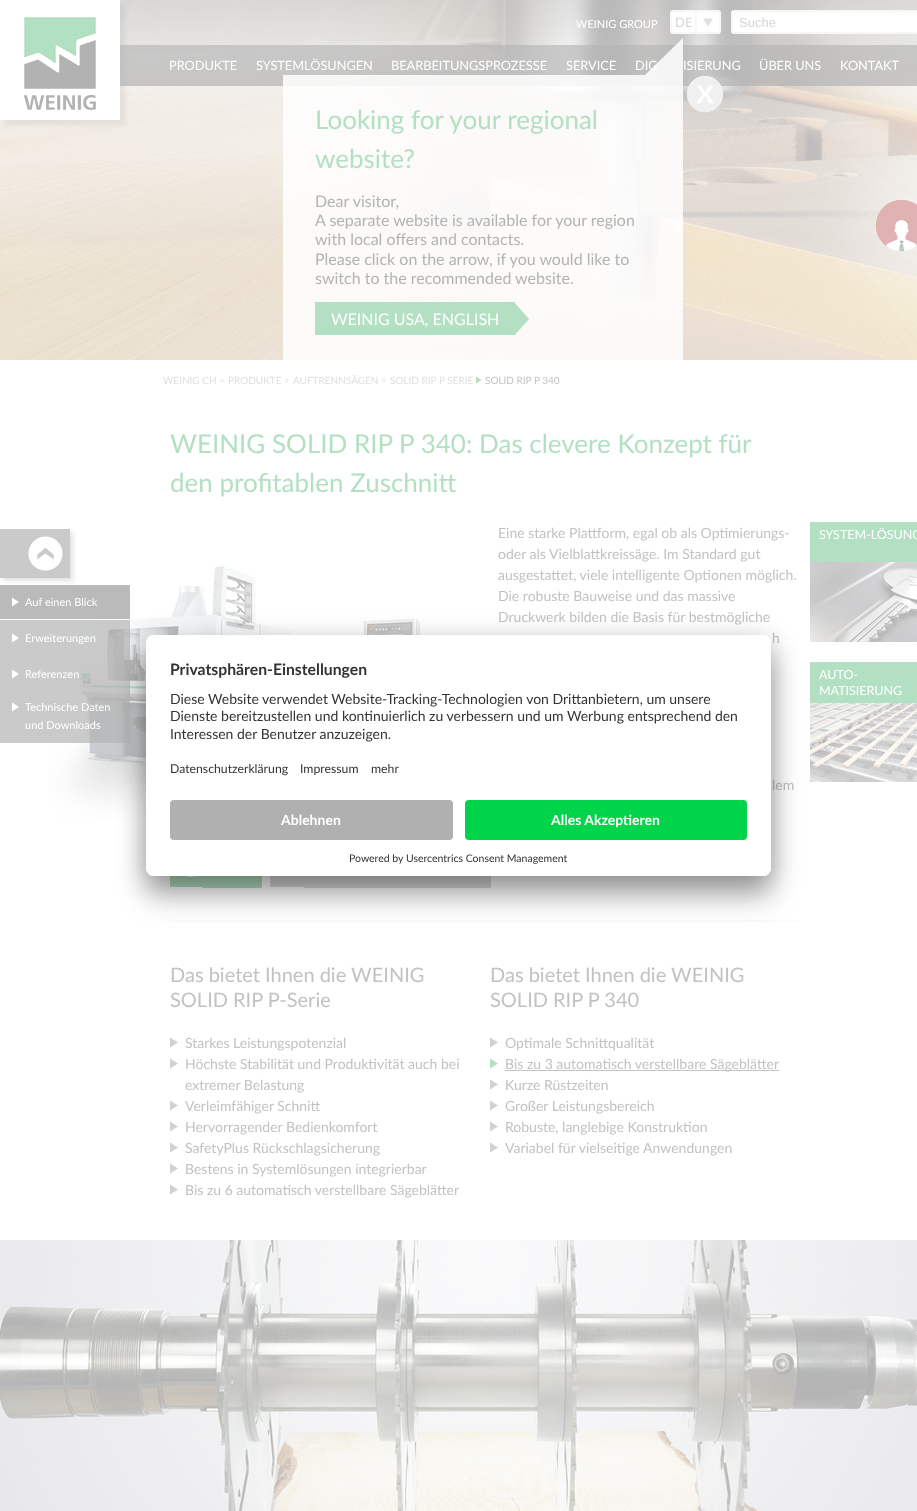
<svg xmlns="http://www.w3.org/2000/svg" width="917" height="1511">
<defs>
<clipPath id="clip1"><rect x="146" y="635" width="625" height="241" rx="8"/></clipPath>
<clipPath id="clip2"><path d="M154 635h609c4.5 0 8 3.5 8 8v149h-625v-149c0-4.5 3.5-8 8-8z"/></clipPath>
</defs>
<rect width="100%" height="100%" fill="#fff"/>
<image x="0" y="0" width="917" height="360" href="media/1.png"/>
<path d="M673 11h23v22h-23c-1 0-2-1-2-2v-18c0-1 1-2 2-2z" fill="#fff" stroke="#f7f7f7" stroke-width="2"/>
<text x="675" y="27" style="font-family:Lato;font-size:13px;fill:#d6d6d6">DE</text>
<path d="M697 10h21c1.5 0 3 1.5 3 3v18c0 1.5-1.5 3-3 3h-21z" fill="#fff"/>
<path d="M697 10h21c1.5 0 3 1.5 3 3v18c0 1.5-1.5 3-3 3h-21zm0 2h21c.5 0 1 .5 1 1v18c0 .5-.5 1-1 1h-21z" fill="#f7f7f7" fill-rule="evenodd"/>
<path d="M713 18.5h-10l5 8z" fill="#e0e0e0"/>
<rect x="120" y="45" width="797" height="41" fill="#b3b3b3b3"/>
<text x="635" y="70" style="font-family:Lato;font-size:12.75px;fill:#fff">DIG</text>
<path d="M683 38v37h-38z" fill="#ffffffd9"/>
<rect x="283" y="75" width="400" height="285" fill="#ffffffd9"/>
<circle cx="705" cy="94" r="18" fill="#fff"/>
<image x="687" y="76" width="36" height="37" href="media/2.png"/>
<text x="315" y="129" style="font-family:Lato;font-size:26px;fill:#b3e0c2">Looking for your regional</text>
<text x="315" y="168" style="font-family:Lato;font-size:26px;fill:#b3e0c2">website?</text>
<text x="315" y="207" style="font-family:Lato;font-size:16px;fill:#b3b3b3">Dear visitor,</text>
<text x="315" y="226" style="font-family:Lato;font-size:16px;fill:#b3b3b3">A separate website is available for your region</text>
<text x="315" y="245" style="font-family:Lato;font-size:16px;fill:#b3b3b3">with local offers and contacts.</text>
<text x="315" y="265" style="font-family:Lato;font-size:16px;fill:#b3b3b3">Please click on the arrow, if you would like to</text>
<text x="315" y="284" style="font-family:Lato;font-size:16px;fill:#b3b3b3">switch to the recommended website.</text>
<rect x="315" y="302" width="200" height="33" fill="#b3e0c2"/>
<text x="331" y="325" style="font-family:Lato;font-size:16px;fill:#fff">WEINIG USA, ENGLISH</text>
<path d="M514 336v-34l15 17z" fill="#b3e0c2"/>
<path d="M734 11h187v22h-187c-1 0-2-1-2-2v-18c0-1 1-2 2-2z" fill="#fff" stroke="#f7f7f7" stroke-width="2"/>
<text x="739" y="27" style="font-family:Liberation Sans;font-size:13px;fill:#d6d6d6">Suche</text>
<text x="576" y="28" style="font-family:Lato;font-size:11px;fill:#fff">WEINIG GROUP</text>
<rect x="5" y="5" width="120" height="120" fill="#b3b3b340" filter="blur(2.5px)"/>
<rect width="120" height="120" fill="#fff"/>
<image x="23" y="17" width="73" height="93" href="media/3.png"/>
<text x="169" y="70" style="font-family:Lato;font-size:12.75px;fill:#fff">PRODUKTE</text>
<text x="256" y="70" style="font-family:Lato;font-size:12.75px;fill:#fff">SYSTEMLÖSUNGEN</text>
<text x="391" y="70" style="font-family:Lato;font-size:12.75px;fill:#fff">BEARBEITUNGSPROZESSE</text>
<text x="566" y="70" style="font-family:Lato;font-size:12.75px;fill:#fff">SERVICE</text>
<text x="683" y="70" style="font-family:Lato;font-size:12.75px;fill:#fff">ISIERUNG</text>
<text x="759" y="70" style="font-family:Lato;font-size:12.75px;fill:#fff">ÜBER UNS</text>
<text x="840" y="70" style="font-family:Lato;font-size:12.75px;fill:#fff">KONTAKT</text>
<image x="876" y="200" width="41" height="51" href="media/4.png"/>
<text x="163" y="384" style="font-family:Lato;font-size:10px;fill:#e0e0e0">WEINIG CH</text>
<text x="219" y="384" style="font-family:Lato;font-size:10px;fill:#e0e0e0">&gt;</text>
<text x="228" y="384" style="font-family:Lato;font-size:10px;fill:#e0e0e0">PRODUKTE</text>
<text x="284" y="384" style="font-family:Lato;font-size:10px;fill:#e0e0e0">&gt;</text>
<text x="293" y="384" style="font-family:Lato;font-size:10px;fill:#e0e0e0">AUFTRENNSÄGEN</text>
<text x="381" y="384" style="font-family:Lato;font-size:10px;fill:#e0e0e0">&gt;</text>
<text x="390" y="384" style="font-family:Lato;font-size:10px;fill:#e0e0e0">SOLID RIP P SERIE</text>
<path d="M476 376.5v7l5.5-3.5z" fill="#b3e0c2"/>
<text x="485" y="384" style="font-family:Lato;font-size:10px;fill:#c2c2c2">SOLID RIP P 340</text>
<image x="48" y="562" width="397" height="257" href="media/6.png"/>
<rect y="585" width="130" height="34" fill="#b3b3b3e6"/>
<rect x="3" y="532" width="70" height="49" fill="#b3b3b366" filter="blur(2.5px)"/>
<rect y="529" width="70" height="49" fill="#cacaca"/>
<image x="28" y="536" width="35" height="35" href="media/5.png"/>
<rect x="128" y="619" width="2" height="1" fill="#fff"/>
<path d="M12 597.5v9l7-4.5z" fill="#fff"/>
<text x="25" y="606" style="font-family:Lato;font-size:11px;fill:#fff">Auf einen Blick</text>
<rect y="620" width="130" height="36" fill="#b3b3b3b3"/>
<path d="M12 633.5v9l7-4.5z" fill="#fff"/>
<text x="25" y="642" style="font-family:Lato;font-size:11px;fill:#fff">Erweiterungen</text>
<rect y="656" width="130" height="36" fill="#b3b3b3b3"/>
<path d="M12 669.5v9l7-4.5z" fill="#fff"/>
<text x="25" y="678" style="font-family:Lato;font-size:11px;fill:#fff">Referenzen</text>
<rect y="692" width="130" height="51" fill="#b3b3b3b3"/>
<path d="M12 702.5v9l7-4.5z" fill="#fff"/>
<text x="25" y="711" style="font-family:Lato;font-size:11px;fill:#fff">Technische Daten</text>
<text x="25" y="729" style="font-family:Lato;font-size:11px;fill:#fff">und Downloads</text>
<text x="170" y="453" style="font-family:Lato;font-size:26px;fill:#b3e0c2">WEINIG SOLID RIP P 340: Das clevere Konzept für</text>
<text x="170" y="492" style="font-family:Lato;font-size:26px;fill:#b3e0c2">den profitablen Zuschnitt</text>
<text x="498" y="538" style="font-family:Lato;font-size:14px;fill:#c2c2c2">Eine starke Plattform, egal ob als Optimierungs-</text>
<text x="498" y="559" style="font-family:Lato;font-size:14px;fill:#c2c2c2">oder als Vielblattkreissäge. Im Standard gut</text>
<text x="498" y="580" style="font-family:Lato;font-size:14px;fill:#c2c2c2">ausgestattet, viele intelligente Optionen möglich.</text>
<text x="498" y="601" style="font-family:Lato;font-size:14px;fill:#c2c2c2">Die robuste Bauweise und das massive</text>
<text x="498" y="622" style="font-family:Lato;font-size:14px;fill:#c2c2c2">Druckwerk bilden die Basis für bestmögliche</text>
<text x="772" y="643" style="font-family:Lato;font-size:14px;fill:#c2c2c2">h</text>
<text x="772" y="790" style="font-family:Lato;font-size:14px;fill:#c2c2c2">lem</text>
<rect x="170" y="876" width="32" height="11" fill="#b3e0c2"/>
<rect x="202" y="876" width="60" height="12" fill="#b3e0c2"/>
<image x="186" y="876" width="10" height="1" href="media/7.png"/>
<rect x="270" y="876" width="34" height="11" fill="#d9d9d9"/>
<rect x="304" y="876" width="187" height="12" fill="#d9d9d9"/>
<rect x="170" y="920" width="630" height="2" fill="#fbfbfb"/>
<rect x="810" y="522" width="107" height="40" fill="#b3e0c2"/>
<text x="819" y="539" style="font-family:Lato;font-size:12.5px;fill:#fff">SYSTEM-LÖSUNG</text>
<image x="810" y="562" width="107" height="80" href="media/8.png"/>
<rect x="810" y="662" width="107" height="41" fill="#b3e0c2"/>
<text x="819" y="679" style="font-family:Lato;font-size:12.5px;fill:#fff">AUTO-</text>
<text x="819" y="695" style="font-family:Lato;font-size:12.5px;fill:#fff">MATISIERUNG</text>
<image x="810" y="703" width="107" height="79" href="media/9.png"/>
<text x="170" y="982" style="font-family:Lato;font-size:20px;fill:#c2c2c2">Das bietet Ihnen die WEINIG</text>
<text x="170" y="1007" style="font-family:Lato;font-size:20px;fill:#c2c2c2">SOLID RIP P-Serie</text>
<path d="M170 1037.5v10l8-5z" fill="#d1d1d1"/>
<text x="185" y="1048" style="font-family:Lato;font-size:14px;fill:#c2c2c2">Starkes Leistungspotenzial</text>
<path d="M170 1058.5v10l8-5z" fill="#d1d1d1"/>
<text x="185" y="1069" style="font-family:Lato;font-size:14px;fill:#c2c2c2">Höchste Stabilität und Produktivität auch bei</text>
<text x="185" y="1090" style="font-family:Lato;font-size:14px;fill:#c2c2c2">extremer Belastung</text>
<path d="M170 1100.5v10l8-5z" fill="#d1d1d1"/>
<text x="185" y="1111" style="font-family:Lato;font-size:14px;fill:#c2c2c2">Verleimfähiger Schnitt</text>
<path d="M170 1121.5v10l8-5z" fill="#d1d1d1"/>
<text x="185" y="1132" style="font-family:Lato;font-size:14px;fill:#c2c2c2">Hervorragender Bedienkomfort</text>
<path d="M170 1142.5v10l8-5z" fill="#d1d1d1"/>
<text x="185" y="1153" style="font-family:Lato;font-size:14px;fill:#c2c2c2">SafetyPlus Rückschlagsicherung</text>
<path d="M170 1163.5v10l8-5z" fill="#d1d1d1"/>
<text x="185" y="1174" style="font-family:Lato;font-size:14px;fill:#c2c2c2">Bestens in Systemlösungen integrierbar</text>
<path d="M170 1184.5v10l8-5z" fill="#d1d1d1"/>
<text x="185" y="1195" style="font-family:Lato;font-size:14px;fill:#c2c2c2">Bis zu 6 automatisch verstellbare Sägeblätter</text>
<text x="490" y="982" style="font-family:Lato;font-size:20px;fill:#c2c2c2">Das bietet Ihnen die WEINIG</text>
<text x="490" y="1007" style="font-family:Lato;font-size:20px;fill:#c2c2c2">SOLID RIP P 340</text>
<path d="M490 1037.5v10l8-5z" fill="#d1d1d1"/>
<text x="505" y="1048" style="font-family:Lato;font-size:14px;fill:#c2c2c2">Optimale Schnittqualität</text>
<path d="M490 1058.5v10l8-5z" fill="#b3e0c2"/>
<rect x="505" y="1070" width="274" height="1" fill="#c2c2c2"/>
<text x="505" y="1069" style="font-family:Lato;font-size:14px;fill:#c2c2c2">Bis zu 3 automatisch verstellbare Sägeblätter</text>
<path d="M490 1079.5v10l8-5z" fill="#d1d1d1"/>
<text x="505" y="1090" style="font-family:Lato;font-size:14px;fill:#c2c2c2">Kurze Rüstzeiten</text>
<path d="M490 1100.5v10l8-5z" fill="#d1d1d1"/>
<text x="505" y="1111" style="font-family:Lato;font-size:14px;fill:#c2c2c2">Großer Leistungsbereich</text>
<path d="M490 1121.5v10l8-5z" fill="#d1d1d1"/>
<text x="505" y="1132" style="font-family:Lato;font-size:14px;fill:#c2c2c2">Robuste, langlebige Konstruktion</text>
<path d="M490 1142.5v10l8-5z" fill="#d1d1d1"/>
<text x="505" y="1153" style="font-family:Lato;font-size:14px;fill:#c2c2c2">Variabel für vielseitige Anwendungen</text>
<image x="0" y="1240" width="917" height="271" href="media/10.png"/>
<rect x="146" y="655" width="625" height="241" rx="8" fill="#0000004d" filter="blur(14px)"/>
<rect x="146" y="640" width="625" height="241" rx="8" fill="#00000038" filter="blur(13px)"/>
<rect x="146" y="635" width="625" height="241" rx="8" fill="#fff"/>
<g clip-path="url(#clip1)">
<g clip-path="url(#clip2)">
<rect x="146" y="636" width="625" height="156" fill="#fff"/>
</g>
</g>
<text x="170" y="675" style="font-family:Lato;font-size:15.75px;font-weight:bold;fill:#333">Privatsphären-Einstellungen</text>
<text x="170" y="704" style="font-family:Lato;font-size:14px;fill:#333">Diese Website verwendet Website-Tracking-Technologien von Drittanbietern, um unsere</text>
<text x="170" y="721" style="font-family:Lato;font-size:14px;fill:#333">Dienste bereitzustellen und kontinuierlich zu verbessern und um Werbung entsprechend den</text>
<text x="170" y="739" style="font-family:Lato;font-size:14px;fill:#333">Interessen der Benutzer anzuzeigen.</text>
<text x="170" y="773" style="font-family:Lato;font-size:12.25px;fill:#333">Datenschutzerklärung</text>
<text x="300" y="773" style="font-family:Lato;font-size:12.25px;fill:#333">Impressum</text>
<text x="371" y="773" style="font-family:Lato;font-size:12.25px;fill:#333">mehr</text>
<path d="M146 792h625v76c0 4.5-3.5 8-8 8h-609c-4.5 0-8-3.5-8-8z" fill="#fff"/>
<rect x="170" y="800" width="283" height="40" rx="4" fill="#b0b0b0"/>
<text x="281" y="825" style="font-family:Lato;font-size:14px;font-weight:bold;fill:#fff">Ablehnen</text>
<rect x="465" y="800" width="282" height="40" rx="4" fill="#00d44a"/>
<text x="551" y="825" style="font-family:Lato;font-size:14px;font-weight:bold;fill:#fff">Alles Akzeptieren</text>
<text x="349" y="862" style="font-family:Lato;font-size:10.5px;fill:#333">Powered by Usercentrics Consent Management</text>
</svg>
